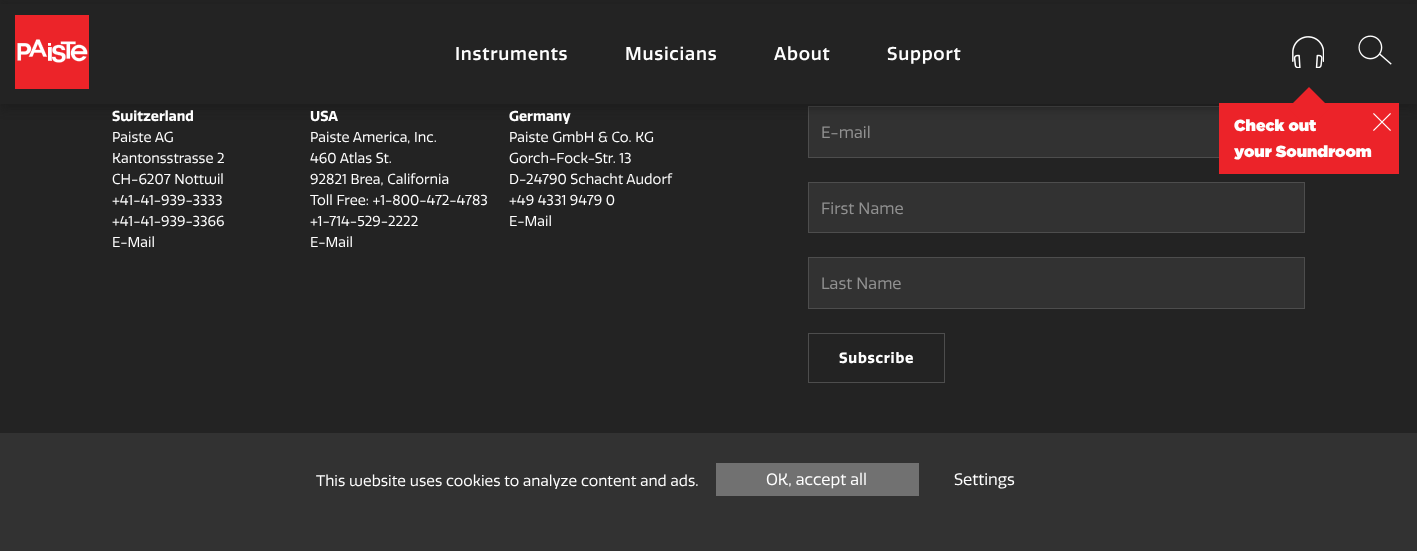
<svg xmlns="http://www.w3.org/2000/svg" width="1417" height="551">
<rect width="100%" height="100%" fill="#232323"/>
<rect x="809" y="107" width="410" height="50" fill="#323232"/>
<rect x="808.5" y="106.5" width="496" height="51" fill="none" stroke="#4d4d4d"/>
<rect y="5" width="1417" height="104" fill="#17171780" filter="blur(5px)"/>
<rect y="4" width="1417" height="100" fill="#232323"/>
<image x="15" y="15" width="74" height="74" href="media/1.png"/>
<text x="455" y="60" style="font-family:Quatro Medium;font-size:18px;font-weight:500;letter-spacing:0.75px;fill:#fefefe">Instruments</text>
<text x="625" y="60" style="font-family:Quatro Medium;font-size:18px;font-weight:500;letter-spacing:0.75px;fill:#fefefe">Musicians</text>
<text x="774" y="60" style="font-family:Quatro Medium;font-size:18px;font-weight:500;letter-spacing:0.75px;fill:#fefefe">About</text>
<text x="887" y="60" style="font-family:Quatro Medium;font-size:18px;font-weight:500;letter-spacing:0.75px;fill:#fefefe">Support</text>
<image x="1358" y="35" width="34" height="30" href="media/2.png"/>
<image x="1292" y="36" width="32" height="32" href="media/3.png"/>
<rect x="1219" y="103" width="180" height="71" fill="#ec2329"/>
<path d="M1309 87l21 21l-21 21l-21-21z" fill="#ec2329"/>
<image x="1373" y="113" width="18" height="18" href="media/4.png"/>
<text x="1234" y="131" style="font-family:'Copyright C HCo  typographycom';font-size:16px;font-weight:500;fill:#fefefe">Check out</text>
<text x="1234" y="157" style="font-family:'Copyright C HCo  typographycom';font-size:16px;font-weight:500;fill:#fefefe">your Soundroom</text>
<text x="112" y="121" style="font-family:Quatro;font-size:14px;font-weight:bold;fill:#fefefe">Switzerland</text>
<text x="112" y="142" style="font-family:Quatro;font-size:14px;fill:#fefefe">Paiste AG</text>
<text x="112" y="163" style="font-family:Quatro;font-size:14px;fill:#fefefe">Kantonsstrasse 2</text>
<text x="112" y="184" style="font-family:Quatro;font-size:14px;fill:#fefefe">CH-6207 Nottwil</text>
<text x="112" y="205" style="font-family:Quatro;font-size:14px;fill:#fefefe">+41-41-939-3333</text>
<text x="112" y="226" style="font-family:Quatro;font-size:14px;fill:#fefefe">+41-41-939-3366</text>
<text x="112" y="247" style="font-family:Quatro;font-size:14px;fill:#fefefe">E-Mail</text>
<text x="310" y="121" style="font-family:Quatro;font-size:14px;font-weight:bold;fill:#fefefe">USA</text>
<text x="310" y="142" style="font-family:Quatro;font-size:14px;fill:#fefefe">Paiste America, Inc.</text>
<text x="310" y="163" style="font-family:Quatro;font-size:14px;fill:#fefefe">460 Atlas St.</text>
<text x="310" y="184" style="font-family:Quatro;font-size:14px;fill:#fefefe">92821 Brea, California</text>
<text x="310" y="205" style="font-family:Quatro;font-size:14px;fill:#fefefe">Toll Free: +1-800-472-4783</text>
<text x="310" y="226" style="font-family:Quatro;font-size:14px;fill:#fefefe">+1-714-529-2222</text>
<text x="310" y="247" style="font-family:Quatro;font-size:14px;fill:#fefefe">E-Mail</text>
<text x="509" y="121" style="font-family:Quatro;font-size:14px;font-weight:bold;fill:#fefefe">Germany</text>
<text x="509" y="142" style="font-family:Quatro;font-size:14px;fill:#fefefe">Paiste GmbH &amp; Co. KG</text>
<text x="509" y="163" style="font-family:Quatro;font-size:14px;fill:#fefefe">Gorch-Fock-Str. 13</text>
<text x="509" y="184" style="font-family:Quatro;font-size:14px;fill:#fefefe">D-24790 Schacht Audorf</text>
<text x="509" y="205" style="font-family:Quatro;font-size:14px;fill:#fefefe">+49 4331 9479 0</text>
<text x="509" y="226" style="font-family:Quatro;font-size:14px;fill:#fefefe">E-Mail</text>
<text x="821" y="138" style="font-family:Quatro;font-size:16px;fill:#919191">E-mail</text>
<rect x="808.5" y="182.5" width="496" height="50" fill="#323232" stroke="#4d4d4d"/>
<text x="821" y="214" style="font-family:Quatro;font-size:16px;fill:#919191">First Name</text>
<rect x="808.5" y="257.5" width="496" height="51" fill="#323232" stroke="#4d4d4d"/>
<text x="821" y="289" style="font-family:Quatro;font-size:16px;fill:#919191">Last Name</text>
<rect x="808.5" y="333.5" width="136" height="49" fill="none" stroke="#4d4d4d"/>
<text x="839" y="363" style="font-family:Quatro;font-size:14.5px;font-weight:bold;letter-spacing:0.75px;fill:#fefefe">Subscribe</text>
<rect y="433" width="1417" height="118" fill="#323232"/>
<text x="316" y="486" style="font-family:Quatro;font-size:15px;fill:#fefefe">This website uses cookies to analyze content and ads.</text>
<rect x="716" y="463" width="203" height="33" fill="#717171"/>
<text x="766" y="485" style="font-family:Quatro;font-size:16px;fill:#fefefe">OK, accept all</text>
<text x="954" y="485" style="font-family:Quatro;font-size:16px;fill:#fefefe">Settings</text>
</svg>
